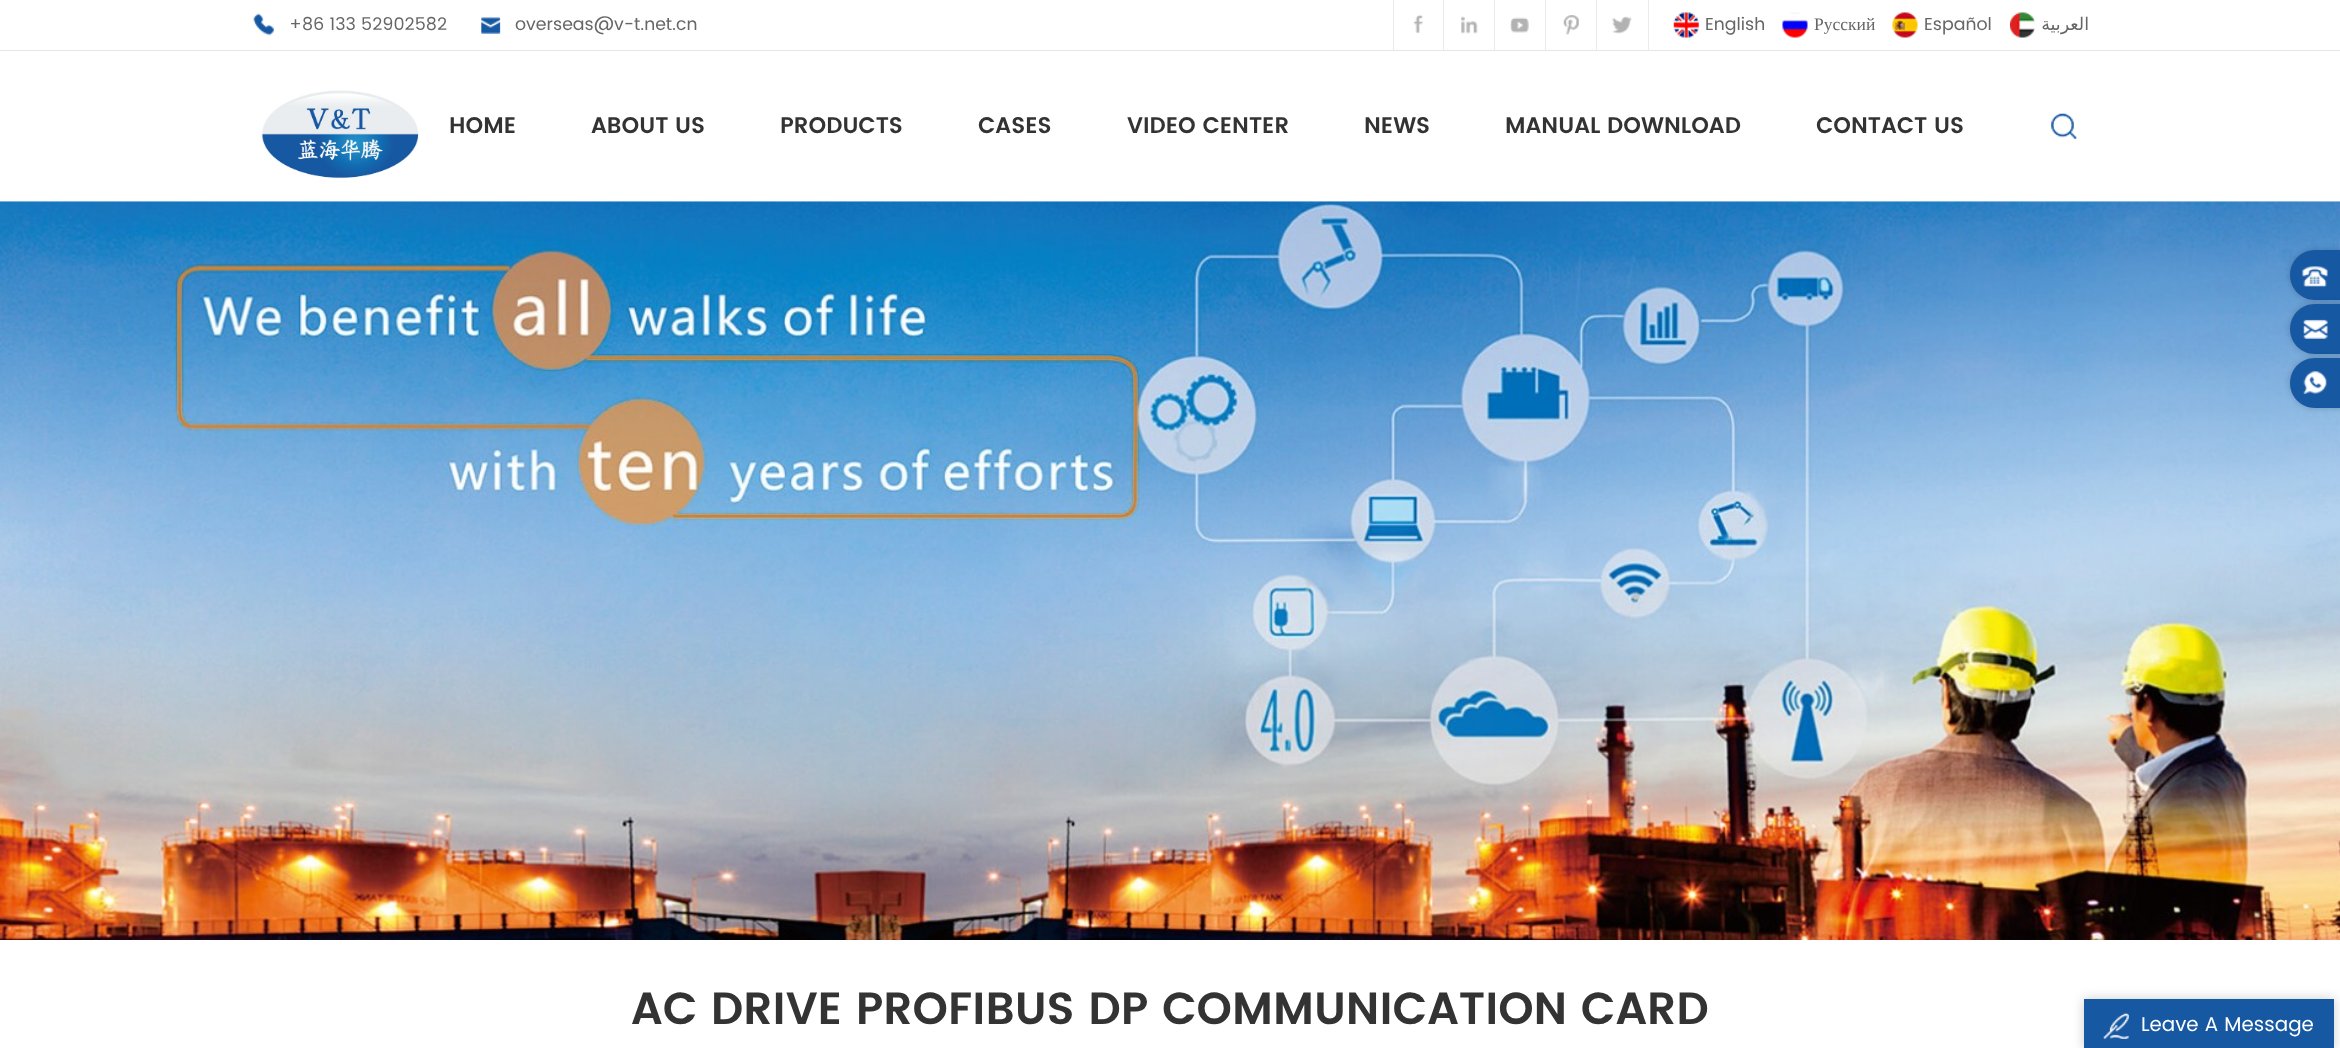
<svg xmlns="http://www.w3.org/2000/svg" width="2340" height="1048">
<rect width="100%" height="100%" fill="#fff"/>
<rect y="50" width="2340" height="1" fill="#e6e6e6"/>
<image x="253" y="13" width="21" height="23" href="media/1.png"/>
<text x="289" y="30" style="font-family:Poppins;font-size:17.5px;fill:#666">+86 133 52902582</text>
<image x="481" y="17" width="20" height="17" href="media/2.png"/>
<text x="515" y="30" style="font-family:Poppins;font-size:17.5px;fill:#666">overseas@v-t.net.cn</text>
<rect x="1443" width="1" height="50" fill="#ebebeb"/>
<rect x="1393" width="1" height="50" fill="#ebebeb"/>
<image x="1413" y="15" width="10" height="18" href="media/3.png"/>
<rect x="1494" width="1" height="50" fill="#ebebeb"/>
<image x="1461" y="16" width="17" height="18" href="media/4.png"/>
<rect x="1545" width="1" height="50" fill="#ebebeb"/>
<image x="1510" y="17" width="19" height="16" href="media/5.png"/>
<rect x="1596" width="1" height="50" fill="#ebebeb"/>
<image x="1563" y="15" width="16" height="20" href="media/6.png"/>
<rect x="1648" width="1" height="50" fill="#ebebeb"/>
<image x="1612" y="16" width="20" height="18" href="media/7.png"/>
<image x="1673" y="12" width="26" height="26" href="media/8.png"/>
<text x="1705" y="30" style="font-family:Poppins;font-size:17.5px;fill:#666">English</text>
<image x="1782" y="12" width="26" height="26" href="media/9.png"/>
<text x="1814" y="30" style="font-family:Liberation Serif;font-size:17.5px;fill:#666">Русский</text>
<image x="1892" y="12" width="26" height="26" href="media/10.png"/>
<text x="1924" y="30" style="font-family:Poppins;font-size:17.5px;fill:#666">Español</text>
<image x="2010" y="12" width="25" height="26" href="media/11.png"/>
<text x="2089" y="30" style="font-family:DejaVu Sans;font-size:17.5px;direction:rtl;fill:#666">العربية</text>
<image x="261" y="90" width="158" height="89" href="media/12.png"/>
<text x="449" y="133" style="font-family:Poppins;font-size:22.5px;font-weight:600;fill:#333">HOME</text>
<text x="591" y="133" style="font-family:Poppins;font-size:22.5px;font-weight:600;fill:#333">ABOUT US</text>
<text x="780" y="133" style="font-family:Poppins;font-size:22.5px;font-weight:600;fill:#333">PRODUCTS</text>
<text x="978" y="133" style="font-family:Poppins;font-size:22.5px;font-weight:600;fill:#333">CASES</text>
<text x="1127" y="133" style="font-family:Poppins;font-size:22.5px;font-weight:600;fill:#333">VIDEO CENTER</text>
<text x="1364" y="133" style="font-family:Poppins;font-size:22.5px;font-weight:600;fill:#333">NEWS</text>
<text x="1505" y="133" style="font-family:Poppins;font-size:22.5px;font-weight:600;fill:#333">MANUAL DOWNLOAD</text>
<text x="1816" y="133" style="font-family:Poppins;font-size:22.5px;font-weight:600;fill:#333">CONTACT US</text>
<image x="2051" y="113" width="26" height="26" href="media/13.png"/>
<image x="0" y="201" width="2340" height="739" href="media/14.png"/>
<rect x="2290" y="250" width="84" height="50" rx="25" fill="#00000033" filter="blur(3px)"/>
<path d="M2315 250h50v50h-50c-14 0-25-11-25-25c0-14 11-25 25-25z" fill="#1758a3"/>
<image x="2302" y="266" width="26" height="21" href="media/15.png"/>
<rect x="2290" y="304" width="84" height="50" rx="25" fill="#00000033" filter="blur(3px)"/>
<path d="M2315 304h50v50h-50c-14 0-25-11-25-25c0-14 11-25 25-25z" fill="#1758a3"/>
<image x="2303" y="319" width="25" height="20" href="media/16.png"/>
<rect x="2290" y="358" width="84" height="50" rx="25" fill="#00000033" filter="blur(3px)"/>
<path d="M2315 358h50v50h-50c-14 0-25-11-25-25c0-14 11-25 25-25z" fill="#1758a3"/>
<image x="2303" y="371" width="24" height="23" href="media/17.png"/>
<text x="631" y="1024" style="font-family:Poppins;font-size:45px;font-weight:600;fill:#333">AC DRIVE PROFIBUS DP COMMUNICATION CARD</text>
<rect x="2084" y="999" width="250" height="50" fill="#00000033" filter="blur(6px)"/>
<rect x="2084" y="999" width="250" height="49" fill="#1758a3"/>
<image x="2103" y="1013" width="26" height="26" href="media/18.png"/>
<text x="2141" y="1031" style="font-family:Poppins;font-size:20px;fill:#fff">Leave A Message</text>
</svg>
